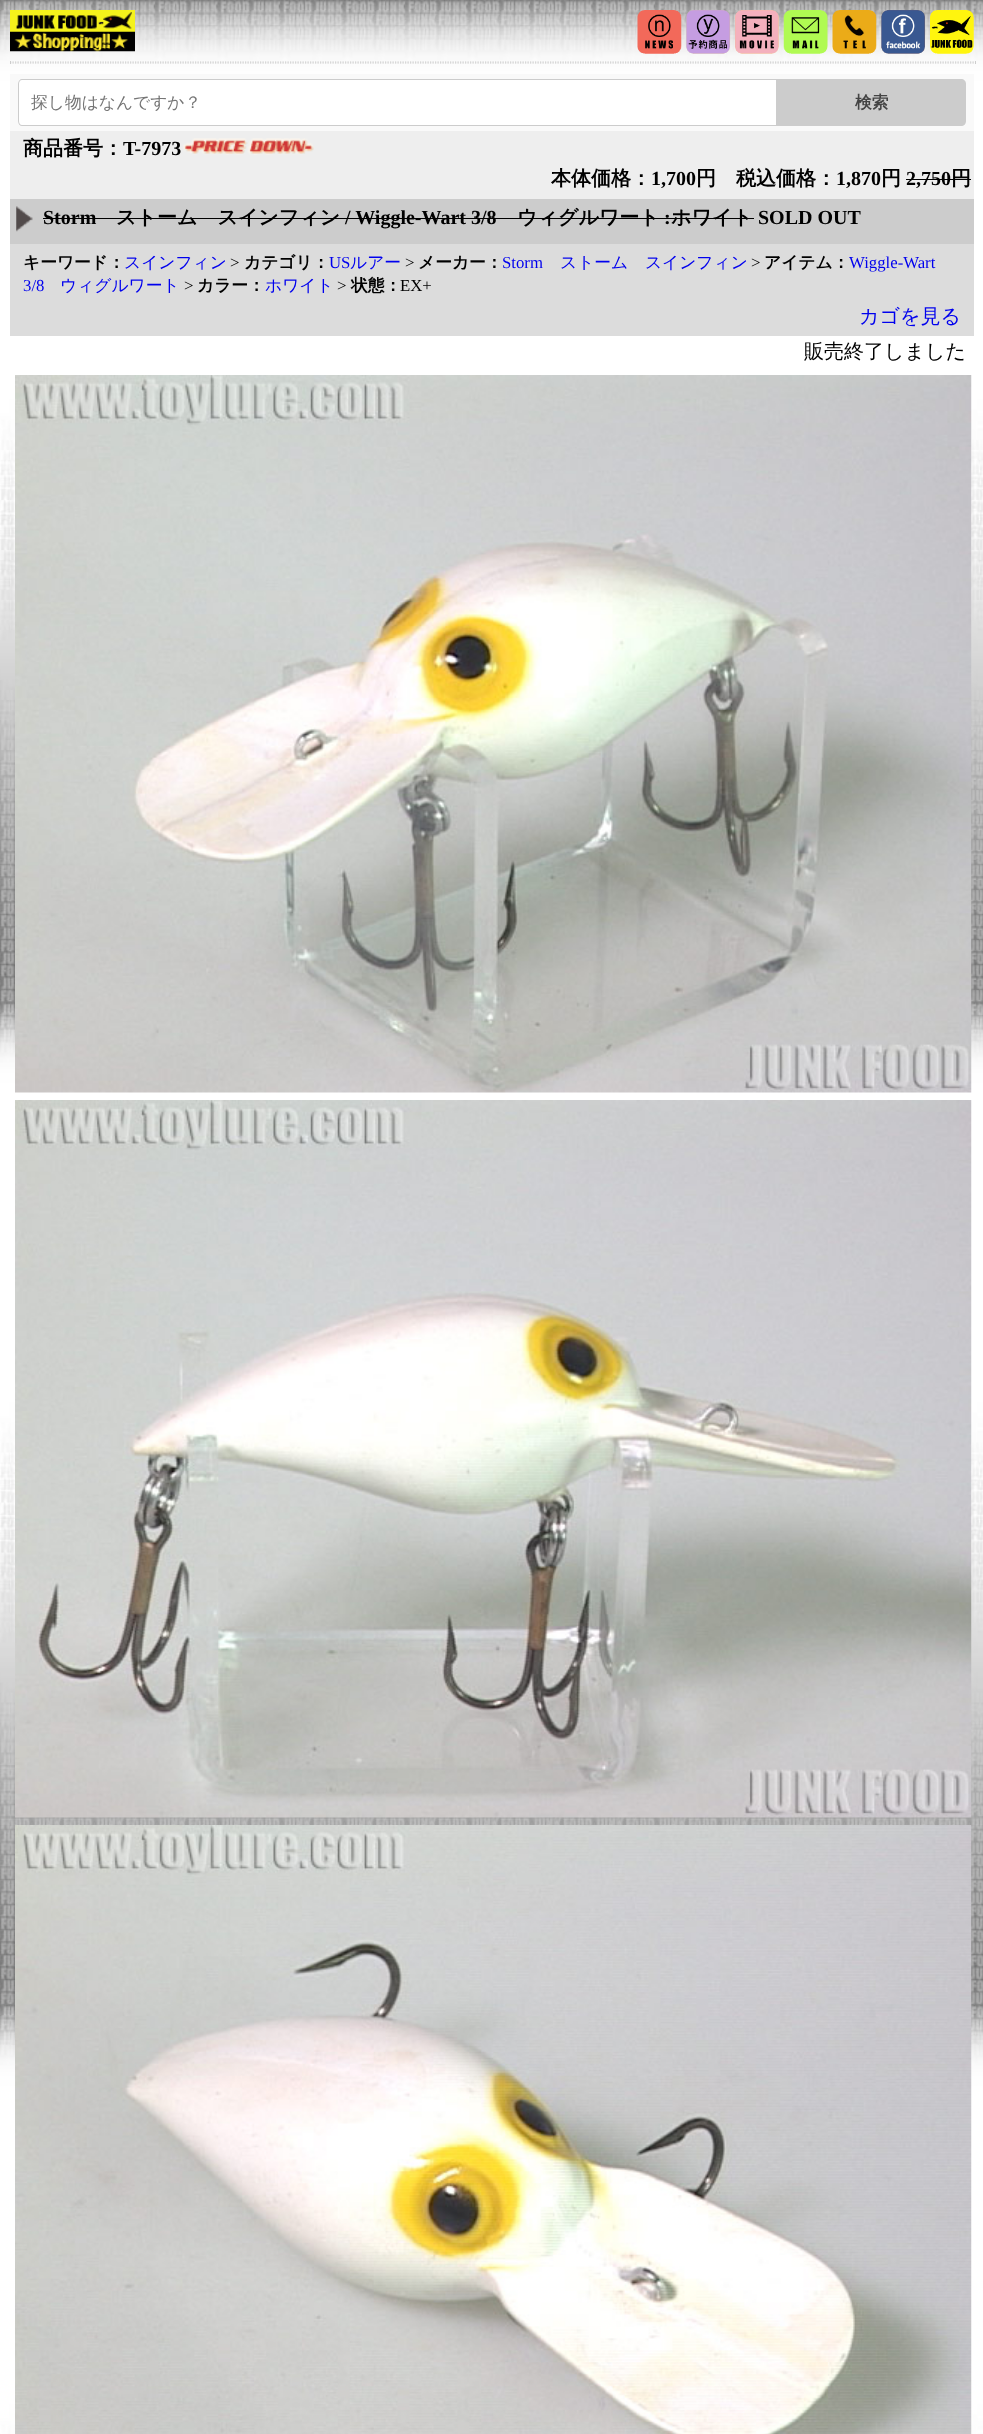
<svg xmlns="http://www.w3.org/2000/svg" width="983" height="2434">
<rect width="100%" height="100%" fill="#fff"/>
<image x="0" y="0" width="983" height="2434" href="media/1.png"/>
<image x="10" y="10" width="125" height="42" href="media/2.png"/>
<image x="637" y="10" width="45" height="44" href="media/3.png"/>
<image x="686" y="10" width="44" height="44" href="media/4.png"/>
<image x="735" y="10" width="44" height="44" href="media/5.png"/>
<image x="783" y="10" width="45" height="44" href="media/6.png"/>
<image x="832" y="10" width="45" height="44" href="media/7.png"/>
<image x="881" y="10" width="44" height="44" href="media/8.png"/>
<image x="930" y="10" width="44" height="44" href="media/9.png"/>
<path d="M10 62h966" fill="none" stroke="#ccc" stroke-width="1.2" stroke-dasharray="1.25 1.25"/>
<rect x="975" y="61" width="1" height="3" fill="#ccc"/>
<path d="M10 63h966" fill="none" stroke="#ccc" stroke-width="1.2" stroke-dasharray="1.25 1.25"/>
<rect x="10" y="61" width="1" height="3" fill="#ccc"/>
<rect x="10" y="74" width="964" height="57" fill="#f9f9f9"/>
<path d="M23 79h753v47h-753c-3 0-5-2-5-5v-37c0-3 2-5 5-5z" fill="#fff"/>
<path d="M22 79h754v47h-754c-2 0-4-2-4-5v-37c0-3 2-5 4-5zm0 1h754v45h-754c-2 0-3-2-3-4v-37c0-2 1-4 3-4z" fill="#ccc" fill-rule="evenodd"/>
<text x="31" y="108" style="font-family:WenQuanYi Zen Hei;font-size:16.75px;font-weight:500;fill:#757575">探し物はなんですか？</text>
<path d="M776 79h185c3 0 5 2 5 5v37c0 3-2 5-5 5h-185z" fill="#ccc"/>
<text x="855" y="108" style="font-family:WenQuanYi Zen Hei;font-size:16.75px;font-weight:bold;fill:#444">検索</text>
<rect x="10" y="131" width="964" height="68" fill="#eee"/>
<text x="23" y="155" style="font-family:WenQuanYi Zen Hei;font-size:20px;font-weight:bold;fill:#000">商品番号：</text>
<text x="123" y="155" style="font-family:Liberation Serif;font-size:20px;font-weight:bold;fill:#000">T-7973</text>
<image x="183" y="138" width="131" height="17" href="media/10.png"/>
<text x="551" y="185" style="font-family:WenQuanYi Zen Hei;font-size:20px;font-weight:bold;fill:#000">本体価格：</text>
<text x="651" y="185" style="font-family:Liberation Serif;font-size:20px;font-weight:bold;fill:#000">1,700</text>
<text x="696" y="185" style="font-family:WenQuanYi Zen Hei;font-size:20px;font-weight:bold;fill:#000">円　税込価格：</text>
<text x="836" y="185" style="font-family:Liberation Serif;font-size:20px;font-weight:bold;fill:#000">1,870</text>
<text x="881" y="185" style="font-family:WenQuanYi Zen Hei;font-size:20px;font-weight:bold;fill:#000">円</text>
<text x="906" y="185" style="font-family:Liberation Serif;font-size:20px;font-weight:bold;fill:#000">2,750</text>
<rect x="906" y="179" width="65" height="1" fill="#000"/>
<text x="951" y="185" style="font-family:WenQuanYi Zen Hei;font-size:20px;font-weight:bold;fill:#000">円</text>
<rect x="10" y="199" width="964" height="45" fill="#ccc"/>
<image x="16" y="206" width="17" height="26" href="media/11.png"/>
<text x="43" y="224" style="font-family:Liberation Serif;font-size:20px;font-weight:bold;fill:#000">Storm</text>
<text x="116" y="224" style="font-family:WenQuanYi Zen Hei;font-size:20px;font-weight:bold;fill:#000">ストーム　スインフィン</text>
<rect x="43" y="218" width="711" height="1" fill="#000"/>
<text x="345" y="224" style="font-family:Liberation Serif;font-size:20px;font-weight:bold;fill:#000">/ Wiggle-Wart 3/8</text>
<text x="517" y="224" style="font-family:WenQuanYi Zen Hei;font-size:20px;font-weight:bold;fill:#000">ウィグルワート</text>
<text x="664" y="224" style="font-family:Liberation Serif;font-size:20px;font-weight:bold;fill:#000">:</text>
<text x="671" y="224" style="font-family:WenQuanYi Zen Hei;font-size:20px;font-weight:bold;fill:#000">ホワイト</text>
<text x="758" y="224" style="font-family:Liberation Serif;font-size:20px;font-weight:bold;fill:#000">SOLD OUT</text>
<rect x="10" y="244" width="964" height="92" fill="#dcdcdc"/>
<text x="23" y="268" style="font-family:WenQuanYi Zen Hei;font-size:16.75px;font-weight:bold;fill:#000">キーワード：</text>
<text x="124" y="268" style="font-family:WenQuanYi Zen Hei;font-size:16.75px;font-weight:500;fill:#00e">スインフィン</text>
<text x="230" y="268" style="font-family:Liberation Serif;font-size:16.75px;fill:#000">&gt;</text>
<text x="244" y="268" style="font-family:WenQuanYi Zen Hei;font-size:16.75px;font-weight:bold;fill:#000">カテゴリ：</text>
<text x="329" y="268" style="font-family:Liberation Serif;font-size:16.75px;fill:#00e">US</text>
<text x="350" y="268" style="font-family:WenQuanYi Zen Hei;font-size:16.75px;font-weight:500;fill:#00e">ルアー</text>
<text x="405" y="268" style="font-family:Liberation Serif;font-size:16.75px;fill:#000">&gt;</text>
<text x="418" y="268" style="font-family:WenQuanYi Zen Hei;font-size:16.75px;font-weight:bold;fill:#000">メーカー：</text>
<text x="502" y="268" style="font-family:Liberation Serif;font-size:16.75px;fill:#00e">Storm</text>
<text x="560" y="268" style="font-family:WenQuanYi Zen Hei;font-size:16.75px;font-weight:500;fill:#00e">ストーム　スインフィン</text>
<text x="751" y="268" style="font-family:Liberation Serif;font-size:16.75px;fill:#000">&gt;</text>
<text x="764" y="268" style="font-family:WenQuanYi Zen Hei;font-size:16.75px;font-weight:bold;fill:#000">アイテム：</text>
<text x="849" y="268" style="font-family:Liberation Serif;font-size:16.75px;fill:#00e">Wiggle-Wart</text>
<text x="23" y="291" style="font-family:Liberation Serif;font-size:16.75px;fill:#00e">3/8</text>
<text x="60" y="291" style="font-family:WenQuanYi Zen Hei;font-size:16.75px;font-weight:500;fill:#00e">ウィグルワート</text>
<text x="184" y="291" style="font-family:Liberation Serif;font-size:16.75px;fill:#000">&gt;</text>
<text x="197" y="291" style="font-family:WenQuanYi Zen Hei;font-size:16.75px;font-weight:bold;fill:#000">カラー：</text>
<text x="265" y="291" style="font-family:WenQuanYi Zen Hei;font-size:16.75px;font-weight:500;fill:#00e">ホワイト</text>
<text x="337" y="291" style="font-family:Liberation Serif;font-size:16.75px;fill:#000">&gt;</text>
<text x="351" y="291" style="font-family:WenQuanYi Zen Hei;font-size:16.75px;font-weight:bold;fill:#000">状態：</text>
<text x="400" y="291" style="font-family:Liberation Serif;font-size:16.75px;fill:#000">EX+</text>
<text x="859" y="323" style="font-family:WenQuanYi Zen Hei;font-size:20px;font-weight:500;fill:#00e">カゴを見る</text>
<text x="804" y="358" style="font-family:WenQuanYi Zen Hei;font-size:20px;font-weight:500;fill:#000">販売終了しました</text>
<image x="15" y="375" width="957" height="718" href="media/12.png"/>
<image x="15" y="1100" width="957" height="718" href="media/13.png"/>
<image x="15" y="1825" width="957" height="609" href="media/14.png"/>
</svg>
